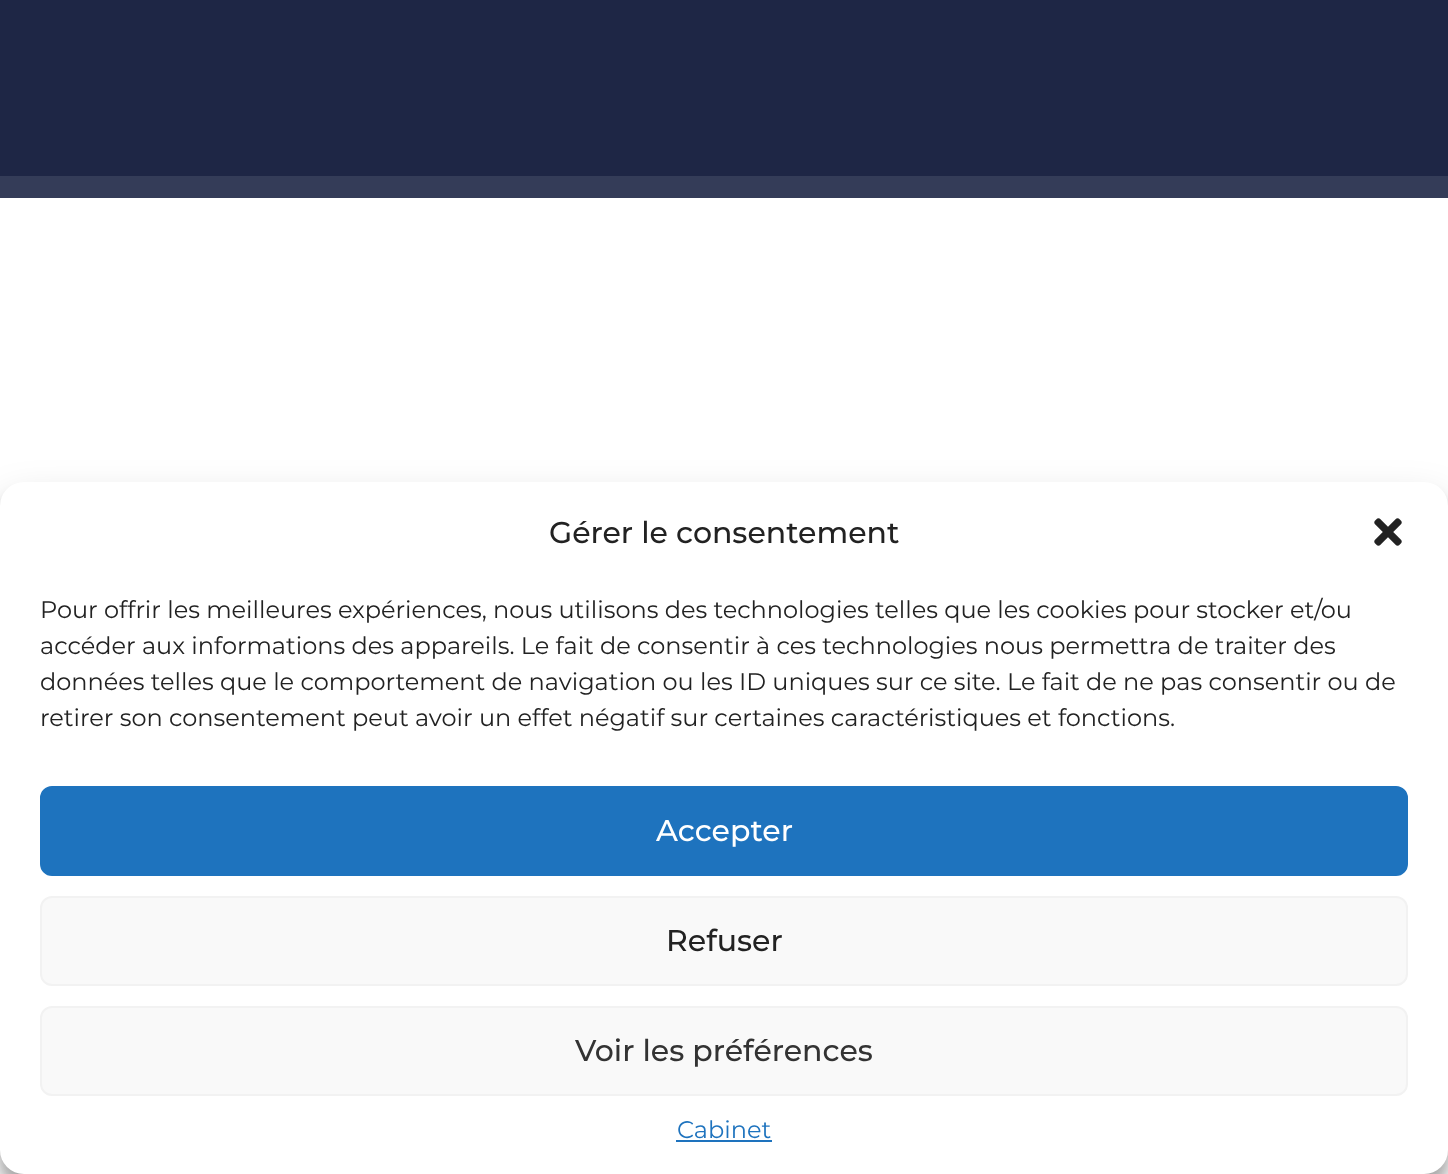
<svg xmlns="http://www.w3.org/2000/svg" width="1448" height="1174">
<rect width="100%" height="100%" fill="#1e2645"/>
<rect y="198" width="1448" height="976" fill="#fff"/>
<rect y="176" width="1448" height="22" fill="#343c58"/>
<rect y="494" width="1448" height="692" rx="24" fill="#0000003b" filter="blur(6px)"/>
<rect y="502" width="1448" height="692" rx="24" fill="#00000030" filter="blur(20px)"/>
<rect y="482" width="1448" height="692" rx="24" fill="#fff"/>
<text x="549" y="543" style="font-family:Montserrat;font-size:30px;font-weight:500;fill:#222">Gérer le consentement</text>
<image x="1374" y="518" width="28" height="28" href="media/1.png"/>
<text x="40" y="618" style="font-family:Montserrat;font-size:24px;fill:#222">Pour offrir les meilleures expériences, nous utilisons des technologies telles que les cookies pour stocker et/ou</text>
<text x="40" y="654" style="font-family:Montserrat;font-size:24px;fill:#222">accéder aux informations des appareils. Le fait de consentir à ces technologies nous permettra de traiter des</text>
<text x="40" y="690" style="font-family:Montserrat;font-size:24px;fill:#222">données telles que le comportement de navigation ou les ID uniques sur ce site. Le fait de ne pas consentir ou de</text>
<text x="40" y="726" style="font-family:Montserrat;font-size:24px;fill:#222">retirer son consentement peut avoir un effet négatif sur certaines caractéristiques et fonctions.</text>
<rect x="41" y="787" width="1366" height="88" rx="11" fill="#1e73be" stroke="#1e73be" stroke-width="2"/>
<text x="656" y="841" style="font-family:Montserrat;font-size:30px;font-weight:500;fill:#fff">Accepter</text>
<rect x="41" y="897" width="1366" height="88" rx="11" fill="#f9f9f9" stroke="#f2f2f2" stroke-width="2"/>
<text x="666" y="951" style="font-family:Montserrat;font-size:30px;font-weight:500;fill:#222">Refuser</text>
<rect x="41" y="1007" width="1366" height="88" rx="11" fill="#f9f9f9" stroke="#f2f2f2" stroke-width="2"/>
<text x="575" y="1061" style="font-family:Montserrat;font-size:30px;font-weight:500;fill:#333">Voir les préférences</text>
<text x="677" y="1138" style="font-family:Montserrat;font-size:24px;fill:#1e73be">Cabinet</text>
<rect x="676" y="1140" width="96" height="2" fill="#1e73be"/>
</svg>
